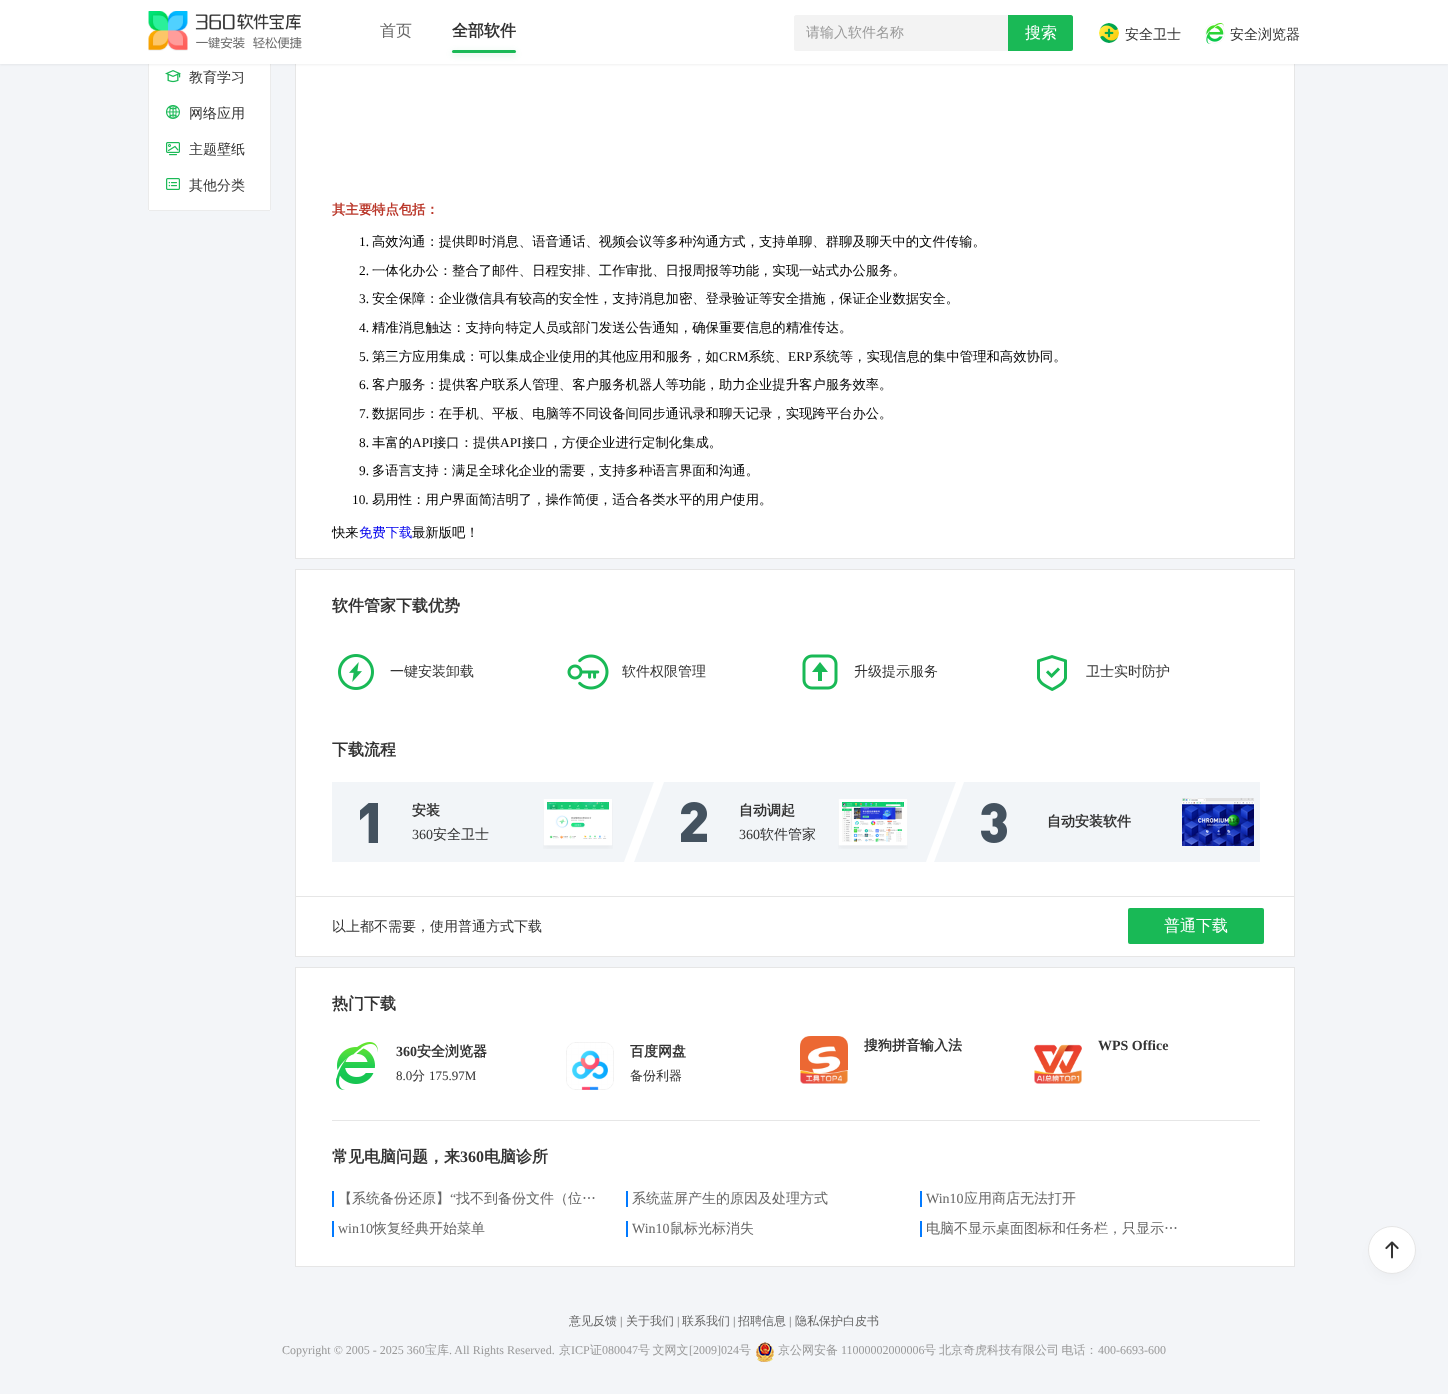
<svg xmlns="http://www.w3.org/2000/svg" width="1448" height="1394">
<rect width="100%" height="100%" fill="#f3f5f8"/>
<path d="M148-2h123v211c0 1-1 2-2 2h-119c-1 0-2-1-2-2z" fill="#fff"/>
<rect x="270" y="64" width="1" height="146" fill="#ebebeb"/>
<rect x="148" y="64" width="1" height="146" fill="#ebebeb"/>
<rect x="296" y="64" width="998" height="494" fill="#fff"/>
<rect x="295.5" y="-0.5" width="999" height="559" fill="none" stroke="#e6e6e6"/>
<rect y="1" width="1448" height="64" fill="#0000000f" filter="blur(1px)"/>
<rect width="1448" height="64" fill="#fff"/>
<image x="148" y="11" width="154" height="40" href="media/1.png"/>
<text x="380" y="36" style="font-family:WenQuanYi Zen Hei;font-size:16px;font-weight:500;fill:#666">首页</text>
<text x="452" y="36" style="font-family:WenQuanYi Zen Hei;font-size:16px;font-weight:bold;fill:#333">全部软件</text>
<rect x="452" y="52" width="64" height="3" rx="1.5" fill="#1ab95633" filter="blur(3px)"/>
<rect x="452" y="50" width="64" height="3" rx="1.5" fill="#1ab956"/>
<path d="M796 15h213v36h-213c-1 0-2-1-2-2v-32c0-1 1-2 2-2z" fill="#f3f3f3"/>
<text x="806" y="37" style="font-family:WenQuanYi Zen Hei;font-size:14px;font-weight:500;fill:#999">请输入软件名称</text>
<path d="M1008 15h63c1 0 2 1 2 2v32c0 1-1 2-2 2h-63z" fill="#1ab956"/>
<text x="1025" y="38" style="font-family:WenQuanYi Zen Hei;font-size:16px;font-weight:500;fill:#fff">搜索</text>
<image x="1099" y="23" width="20" height="20" href="media/2.png"/>
<text x="1125" y="39" style="font-family:WenQuanYi Zen Hei;font-size:14px;font-weight:500;fill:#333">安全卫士</text>
<image x="1205" y="23" width="20" height="21" href="media/3.png"/>
<text x="1230" y="39" style="font-family:WenQuanYi Zen Hei;font-size:14px;font-weight:500;fill:#333">安全浏览器</text>
<rect x="149" y="210" width="121" height="1" fill="#ebebeb"/>
<image x="165" y="70" width="16" height="13" href="media/4.png"/>
<text x="189" y="82" style="font-family:WenQuanYi Zen Hei;font-size:14px;font-weight:500;fill:#333">教育学习</text>
<image x="166" y="105" width="14" height="14" href="media/5.png"/>
<text x="189" y="118" style="font-family:WenQuanYi Zen Hei;font-size:14px;font-weight:500;fill:#333">网络应用</text>
<image x="166" y="142" width="14" height="14" href="media/6.png"/>
<text x="189" y="154" style="font-family:WenQuanYi Zen Hei;font-size:14px;font-weight:500;fill:#333">主题壁纸</text>
<image x="166" y="178" width="14" height="12" href="media/7.png"/>
<text x="189" y="190" style="font-family:WenQuanYi Zen Hei;font-size:14px;font-weight:500;fill:#333">其他分类</text>
<text x="332" y="214" style="font-family:WenQuanYi Zen Hei;font-size:13.35px;font-weight:bold;fill:#ba372a">其主要特点包括：</text>
<text x="359" y="246" style="font-family:Liberation Serif;font-size:13.35px;fill:#000">1.</text>
<text x="372" y="246" style="font-family:WenQuanYi Zen Hei;font-size:13.35px;font-weight:500;fill:#000">高效沟通：提供即时消息、语音通话、视频会议等多种沟通方式，支持单聊、群聊及聊天中的文件传输。</text>
<text x="359" y="275" style="font-family:Liberation Serif;font-size:13.35px;fill:#000">2.</text>
<text x="372" y="275" style="font-family:WenQuanYi Zen Hei;font-size:13.35px;font-weight:500;fill:#000">一体化办公：整合了邮件、日程安排、工作审批、日报周报等功能，实现一站式办公服务。</text>
<text x="359" y="303" style="font-family:Liberation Serif;font-size:13.35px;fill:#000">3.</text>
<text x="372" y="303" style="font-family:WenQuanYi Zen Hei;font-size:13.35px;font-weight:500;fill:#000">安全保障：企业微信具有较高的安全性，支持消息加密、登录验证等安全措施，保证企业数据安全。</text>
<text x="359" y="332" style="font-family:Liberation Serif;font-size:13.35px;fill:#000">4.</text>
<text x="372" y="332" style="font-family:WenQuanYi Zen Hei;font-size:13.35px;font-weight:500;fill:#000">精准消息触达：支持向特定人员或部门发送公告通知，确保重要信息的精准传达。</text>
<text x="359" y="361" style="font-family:Liberation Serif;font-size:13.35px;fill:#000">5.</text>
<text x="372" y="361" style="font-family:WenQuanYi Zen Hei;font-size:13.35px;font-weight:500;fill:#000">第三方应用集成：可以集成企业使用的其他应用和服务，如</text>
<text x="719" y="361" style="font-family:Liberation Serif;font-size:13.35px;fill:#000">CRM</text>
<text x="748" y="361" style="font-family:WenQuanYi Zen Hei;font-size:13.35px;font-weight:500;fill:#000">系统、</text>
<text x="788" y="361" style="font-family:Liberation Serif;font-size:13.35px;fill:#000">ERP</text>
<text x="813" y="361" style="font-family:WenQuanYi Zen Hei;font-size:13.35px;font-weight:500;fill:#000">系统等，实现信息的集中管理和高效协同。</text>
<text x="359" y="389" style="font-family:Liberation Serif;font-size:13.35px;fill:#000">6.</text>
<text x="372" y="389" style="font-family:WenQuanYi Zen Hei;font-size:13.35px;font-weight:500;fill:#000">客户服务：提供客户联系人管理、客户服务机器人等功能，助力企业提升客户服务效率。</text>
<text x="359" y="418" style="font-family:Liberation Serif;font-size:13.35px;fill:#000">7.</text>
<text x="372" y="418" style="font-family:WenQuanYi Zen Hei;font-size:13.35px;font-weight:500;fill:#000">数据同步：在手机、平板、电脑等不同设备间同步通讯录和聊天记录，实现跨平台办公。</text>
<text x="359" y="447" style="font-family:Liberation Serif;font-size:13.35px;fill:#000">8.</text>
<text x="372" y="447" style="font-family:WenQuanYi Zen Hei;font-size:13.35px;font-weight:500;fill:#000">丰富的</text>
<text x="412" y="447" style="font-family:Liberation Serif;font-size:13.35px;fill:#000">API</text>
<text x="433" y="447" style="font-family:WenQuanYi Zen Hei;font-size:13.35px;font-weight:500;fill:#000">接口：提供</text>
<text x="500" y="447" style="font-family:Liberation Serif;font-size:13.35px;fill:#000">API</text>
<text x="522" y="447" style="font-family:WenQuanYi Zen Hei;font-size:13.35px;font-weight:500;fill:#000">接口，方便企业进行定制化集成。</text>
<text x="359" y="475" style="font-family:Liberation Serif;font-size:13.35px;fill:#000">9.</text>
<text x="372" y="475" style="font-family:WenQuanYi Zen Hei;font-size:13.35px;font-weight:500;fill:#000">多语言支持：满足全球化企业的需要，支持多种语言界面和沟通。</text>
<text x="352" y="504" style="font-family:Liberation Serif;font-size:13.35px;fill:#000">10.</text>
<text x="372" y="504" style="font-family:WenQuanYi Zen Hei;font-size:13.35px;font-weight:500;fill:#000">易用性：用户界面简洁明了，操作简便，适合各类水平的用户使用。</text>
<text x="332" y="537" style="font-family:WenQuanYi Zen Hei;font-size:13.35px;font-weight:500;fill:#000">快来</text>
<text x="359" y="537" style="font-family:WenQuanYi Zen Hei;font-size:13.35px;font-weight:500;fill:#00e">免费下载</text>
<text x="412" y="537" style="font-family:WenQuanYi Zen Hei;font-size:13.35px;font-weight:500;fill:#000">最新版吧！</text>
<rect x="295.5" y="569.5" width="999" height="327" fill="#fff" stroke="#e6e6e6"/>
<text x="332" y="611" style="font-family:WenQuanYi Zen Hei;font-size:16px;font-weight:bold;fill:#333">软件管家下载优势</text>
<image x="338" y="654" width="36" height="36" href="media/8.png"/>
<text x="390" y="676" style="font-family:WenQuanYi Zen Hei;font-size:14px;font-weight:500;fill:#333">一键安装卸载</text>
<image x="567" y="654" width="42" height="36" href="media/9.png"/>
<text x="622" y="676" style="font-family:WenQuanYi Zen Hei;font-size:14px;font-weight:500;fill:#333">软件权限管理</text>
<image x="802" y="654" width="36" height="36" href="media/10.png"/>
<text x="854" y="676" style="font-family:WenQuanYi Zen Hei;font-size:14px;font-weight:500;fill:#333">升级提示服务</text>
<image x="1037" y="655" width="30" height="36" href="media/11.png"/>
<text x="1086" y="676" style="font-family:WenQuanYi Zen Hei;font-size:14px;font-weight:500;fill:#333">卫士实时防护</text>
<text x="332" y="755" style="font-family:WenQuanYi Zen Hei;font-size:16px;font-weight:bold;fill:#333">下载流程</text>
<image x="332" y="782" width="928" height="80" href="media/12.png"/>
<text x="412" y="815" style="font-family:WenQuanYi Zen Hei;font-size:14px;font-weight:bold;fill:#333">安装</text>
<text x="412" y="839" style="font-family:Liberation Serif;font-size:14px;fill:#333">360</text>
<text x="433" y="839" style="font-family:WenQuanYi Zen Hei;font-size:14px;font-weight:500;fill:#333">安全卫士</text>
<image x="543" y="799" width="70" height="50" href="media/13.png"/>
<text x="739" y="815" style="font-family:WenQuanYi Zen Hei;font-size:14px;font-weight:bold;fill:#333">自动调起</text>
<text x="739" y="839" style="font-family:Liberation Serif;font-size:14px;fill:#333">360</text>
<text x="760" y="839" style="font-family:WenQuanYi Zen Hei;font-size:14px;font-weight:500;fill:#333">软件管家</text>
<image x="838" y="799" width="70" height="50" href="media/14.png"/>
<text x="1047" y="826" style="font-family:WenQuanYi Zen Hei;font-size:14px;font-weight:bold;fill:#333">自动安装软件</text>
<image x="1182" y="798" width="72" height="48" href="media/15.png"/>
<rect x="296" y="897" width="998" height="59" fill="#fff"/>
<rect x="1294" y="897" width="1" height="60" fill="#e6e6e6"/>
<rect x="295" y="956" width="1000" height="1" fill="#e6e6e6"/>
<rect x="295" y="897" width="1" height="60" fill="#e6e6e6"/>
<text x="332" y="931" style="font-family:WenQuanYi Zen Hei;font-size:14px;font-weight:500;fill:#333">以上都不需要，使用普通方式下载</text>
<rect x="1128" y="908" width="136" height="36" rx="2" fill="#19b956"/>
<text x="1164" y="931" style="font-family:WenQuanYi Zen Hei;font-size:16px;font-weight:500;fill:#fff">普通下载</text>
<rect x="295.5" y="967.5" width="999" height="299" fill="#fff" stroke="#e6e6e6"/>
<text x="332" y="1009" style="font-family:WenQuanYi Zen Hei;font-size:16px;font-weight:bold;fill:#333">热门下载</text>
<image x="336" y="1042" width="42" height="48" href="media/16.png"/>
<text x="396" y="1056" style="font-family:Liberation Serif;font-size:14px;font-weight:bold;fill:#333">360</text>
<text x="417" y="1056" style="font-family:WenQuanYi Zen Hei;font-size:14px;font-weight:bold;fill:#333">安全浏览器</text>
<text x="396" y="1080" style="font-family:Liberation Serif;font-size:13px;fill:#333">8.0</text>
<text x="412" y="1080" style="font-family:WenQuanYi Zen Hei;font-size:13px;font-weight:500;fill:#333">分</text>
<text x="429" y="1080" style="font-family:Liberation Serif;font-size:13px;fill:#333">175.97M</text>
<image x="566" y="1042" width="48" height="48" href="media/17.png"/>
<text x="630" y="1056" style="font-family:WenQuanYi Zen Hei;font-size:14px;font-weight:bold;fill:#333">百度网盘</text>
<text x="630" y="1080" style="font-family:WenQuanYi Zen Hei;font-size:13px;font-weight:500;fill:#333">备份利器</text>
<image x="800" y="1036" width="48" height="48" href="media/18.png"/>
<text x="864" y="1050" style="font-family:WenQuanYi Zen Hei;font-size:14px;font-weight:bold;fill:#333">搜狗拼音输入法</text>
<image x="1034" y="1044" width="48" height="40" href="media/19.png"/>
<text x="1098" y="1050" style="font-family:Liberation Serif;font-size:14px;font-weight:bold;fill:#333">WPS Office</text>
<rect x="332" y="1120" width="928" height="1" fill="#e6e6e6"/>
<text x="332" y="1162" style="font-family:WenQuanYi Zen Hei;font-size:16px;font-weight:bold;fill:#333">常见电脑问题，来</text>
<text x="460" y="1162" style="font-family:Liberation Serif;font-size:16px;font-weight:bold;fill:#333">360</text>
<text x="484" y="1162" style="font-family:WenQuanYi Zen Hei;font-size:16px;font-weight:bold;fill:#333">电脑诊所</text>
<rect x="332" y="1191" width="2" height="16" fill="#027aff"/>
<text x="338" y="1203" style="font-family:WenQuanYi Zen Hei;font-size:14px;font-weight:500;fill:#666">【系统备份还原】</text>
<text x="450" y="1203" style="font-family:Liberation Serif;font-size:14px;fill:#666">“</text>
<text x="456" y="1203" style="font-family:WenQuanYi Zen Hei;font-size:14px;font-weight:500;fill:#666">找不到备份文件（位…</text>
<rect x="626" y="1191" width="2" height="16" fill="#027aff"/>
<text x="632" y="1203" style="font-family:WenQuanYi Zen Hei;font-size:14px;font-weight:500;fill:#666">系统蓝屏产生的原因及处理方式</text>
<rect x="920" y="1191" width="2" height="16" fill="#027aff"/>
<text x="926" y="1203" style="font-family:Liberation Serif;font-size:14px;fill:#666">Win10</text>
<text x="964" y="1203" style="font-family:WenQuanYi Zen Hei;font-size:14px;font-weight:500;fill:#666">应用商店无法打开</text>
<rect x="332" y="1221" width="2" height="16" fill="#027aff"/>
<text x="338" y="1233" style="font-family:Liberation Serif;font-size:14px;fill:#666">win10</text>
<text x="373" y="1233" style="font-family:WenQuanYi Zen Hei;font-size:14px;font-weight:500;fill:#666">恢复经典开始菜单</text>
<rect x="626" y="1221" width="2" height="16" fill="#027aff"/>
<text x="632" y="1233" style="font-family:Liberation Serif;font-size:14px;fill:#666">Win10</text>
<text x="670" y="1233" style="font-family:WenQuanYi Zen Hei;font-size:14px;font-weight:500;fill:#666">鼠标光标消失</text>
<rect x="920" y="1221" width="2" height="16" fill="#027aff"/>
<text x="926" y="1233" style="font-family:WenQuanYi Zen Hei;font-size:14px;font-weight:500;fill:#666">电脑不显示桌面图标和任务栏，只显示…</text>
<rect x="1376" y="1240" width="32" height="32" rx="16" fill="#00000014" filter="blur(8px)"/>
<circle cx="1392" cy="1250" r="23.5" fill="#fff" stroke="#e6e6e6"/>
<image x="1385" y="1241" width="14" height="18" href="media/20.png"/>
<text x="569" y="1325" style="font-family:WenQuanYi Zen Hei;font-size:12px;font-weight:500;fill:#666">意见反馈</text>
<text x="620" y="1325" style="font-family:Liberation Serif;font-size:12px;fill:#666">|</text>
<text x="626" y="1325" style="font-family:WenQuanYi Zen Hei;font-size:12px;font-weight:500;fill:#666">关于我们</text>
<text x="677" y="1325" style="font-family:Liberation Serif;font-size:12px;fill:#666">|</text>
<text x="682" y="1325" style="font-family:WenQuanYi Zen Hei;font-size:12px;font-weight:500;fill:#666">联系我们</text>
<text x="733" y="1325" style="font-family:Liberation Serif;font-size:12px;fill:#666">|</text>
<text x="738" y="1325" style="font-family:WenQuanYi Zen Hei;font-size:12px;font-weight:500;fill:#666">招聘信息</text>
<text x="789" y="1325" style="font-family:Liberation Serif;font-size:12px;fill:#666">|</text>
<text x="795" y="1325" style="font-family:WenQuanYi Zen Hei;font-size:12px;font-weight:500;fill:#666">隐私保护白皮书</text>
<text x="282" y="1354" style="font-family:Liberation Serif;font-size:12px;fill:#999">Copyright © 2005 - 2025 360</text>
<text x="425" y="1354" style="font-family:WenQuanYi Zen Hei;font-size:12px;font-weight:500;fill:#999">宝库</text>
<text x="449" y="1354" style="font-family:Liberation Serif;font-size:12px;fill:#999">. All Rights Reserved.</text>
<text x="559" y="1354" style="font-family:WenQuanYi Zen Hei;font-size:12px;font-weight:500;fill:#999">京</text>
<text x="571" y="1354" style="font-family:Liberation Serif;font-size:12px;fill:#999">ICP</text>
<text x="590" y="1354" style="font-family:WenQuanYi Zen Hei;font-size:12px;font-weight:500;fill:#999">证</text>
<text x="602" y="1354" style="font-family:Liberation Serif;font-size:12px;fill:#999">080047</text>
<text x="638" y="1354" word-spacing="-1" style="font-family:WenQuanYi Zen Hei;font-size:12px;font-weight:500;fill:#999">号 文网文</text>
<text x="689" y="1354" style="font-family:Liberation Serif;font-size:12px;fill:#999">[2009]024</text>
<text x="739" y="1354" style="font-family:WenQuanYi Zen Hei;font-size:12px;font-weight:500;fill:#999">号</text>
<image x="756" y="1342" width="18" height="20" href="media/21.png"/>
<text x="778" y="1354" style="font-family:WenQuanYi Zen Hei;font-size:12px;font-weight:500;fill:#999">京公网安备</text>
<text x="841" y="1354" style="font-family:Liberation Serif;font-size:12px;fill:#999">11000002000006</text>
<text x="924" y="1354" style="font-family:WenQuanYi Zen Hei;font-size:12px;font-weight:500;fill:#999">号</text>
<text x="939" y="1354" word-spacing="-1" style="font-family:WenQuanYi Zen Hei;font-size:12px;font-weight:500;fill:#999">北京奇虎科技有限公司 电话：</text>
<text x="1098" y="1354" style="font-family:Liberation Serif;font-size:12px;fill:#999">400-6693-600</text>
</svg>
